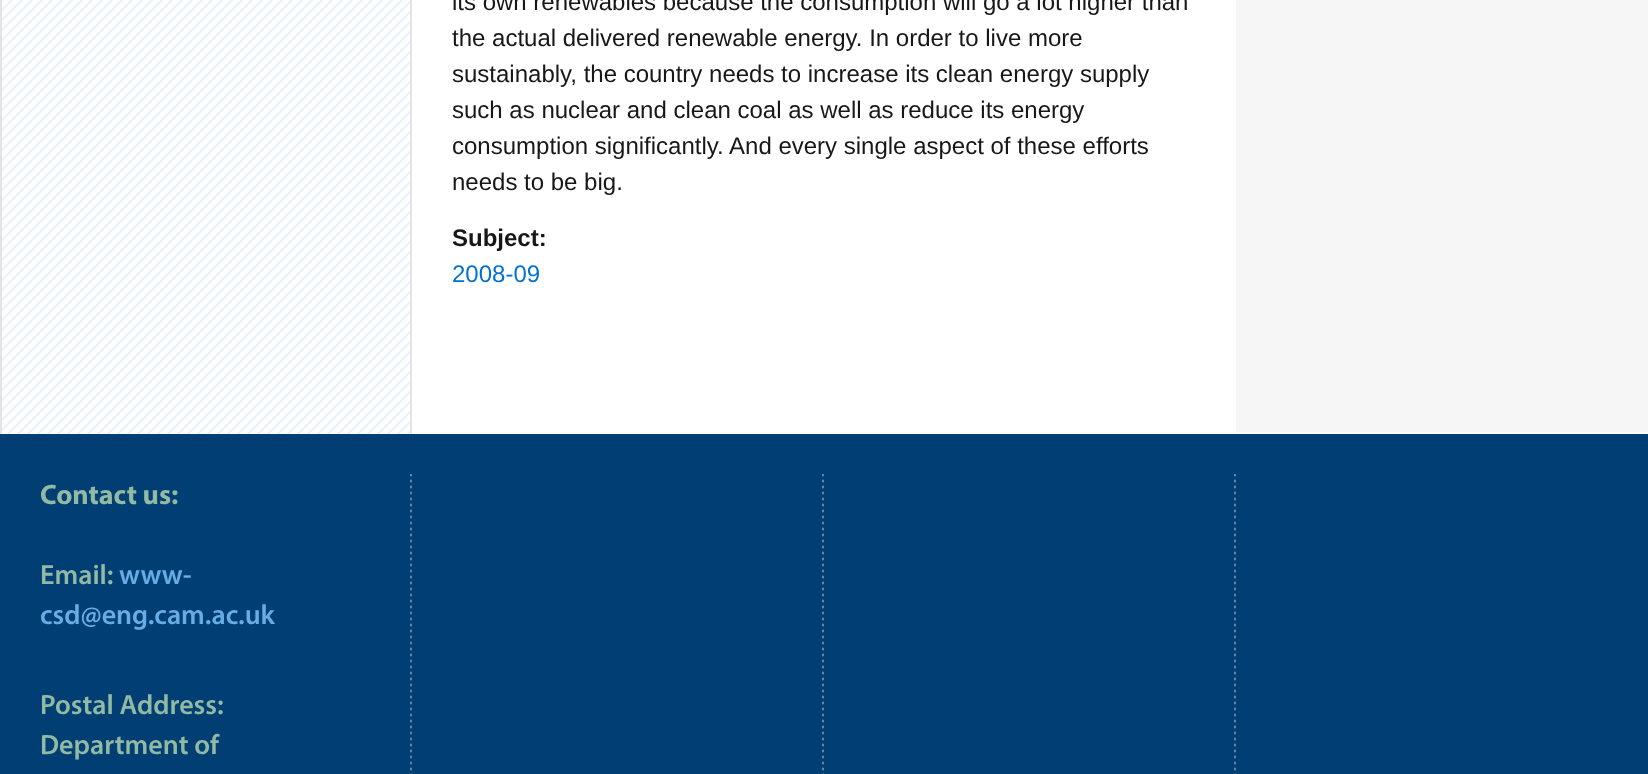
<svg xmlns="http://www.w3.org/2000/svg" width="1648" height="774">
<rect width="100%" height="100%" fill="#fff"/>
<image x="2" y="0" width="408" height="434" href="media/1.png"/>
<rect x="410" width="2" height="434" fill="#e4e4e4"/>
<rect width="2" height="434" fill="#e4e4e4"/>
<text x="452" y="10" style="font-family:Liberation Sans;font-size:24px;fill:#171717">its own renewables because the consumption will go a lot higher than</text>
<text x="452" y="46" style="font-family:Liberation Sans;font-size:24px;fill:#171717">the actual delivered renewable energy. In order to live more</text>
<text x="452" y="82" style="font-family:Liberation Sans;font-size:24px;fill:#171717">sustainably, the country needs to increase its clean energy supply</text>
<text x="452" y="118" style="font-family:Liberation Sans;font-size:24px;fill:#171717">such as nuclear and clean coal as well as reduce its energy</text>
<text x="452" y="154" style="font-family:Liberation Sans;font-size:24px;fill:#171717">consumption significantly. And every single aspect of these efforts</text>
<text x="452" y="190" style="font-family:Liberation Sans;font-size:24px;fill:#171717">needs to be big.</text>
<text x="452" y="246" style="font-family:Liberation Sans;font-size:24px;font-weight:bold;fill:#171717">Subject:</text>
<text x="452" y="282" style="font-family:Liberation Sans;font-size:24px;fill:#0072cf">2008-09</text>
<rect x="1236" width="412" height="432" fill="#f6f6f6"/>
<rect y="434" width="1648" height="340" fill="#003e74"/>
<image x="410" y="474" width="2" height="300" href="media/2.png"/>
<text x="40" y="504" style="font-family:Myriad;font-size:28px;font-weight:bold;fill:#91b9a4">Contact us:</text>
<text x="40" y="584" style="font-family:Myriad;font-size:28px;font-weight:600;fill:#91b9a4">Email:</text>
<text x="119" y="584" style="font-family:Myriad;font-size:28px;font-weight:600;fill:#68ace5">www-</text>
<text x="40" y="624" style="font-family:Myriad;font-size:28px;font-weight:600;fill:#68ace5">csd@eng.cam.ac.uk</text>
<text x="40" y="714" style="font-family:Myriad;font-size:28px;font-weight:600;fill:#91b9a4">Postal Address:</text>
<text x="40" y="754" style="font-family:Myriad;font-size:28px;font-weight:600;fill:#91b9a4">Department of</text>
<image x="822" y="474" width="2" height="300" href="media/2.png"/>
<image x="1234" y="474" width="2" height="300" href="media/2.png"/>
</svg>
